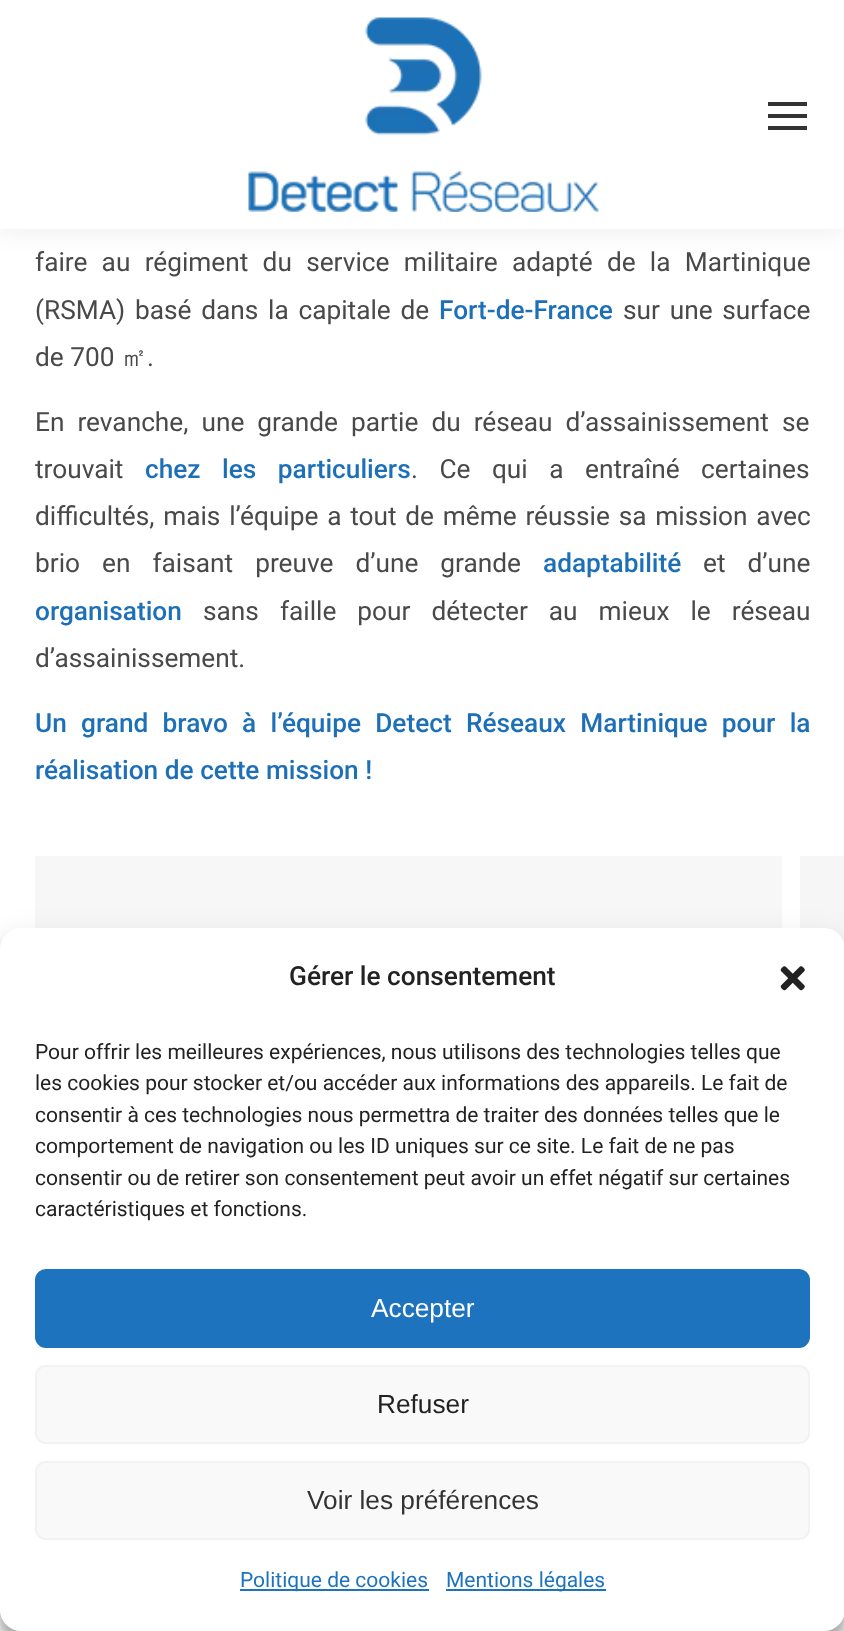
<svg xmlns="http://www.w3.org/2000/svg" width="844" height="1631">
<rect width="100%" height="100%" fill="#fff"/>
<rect x="-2" y="-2" width="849" height="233" fill="#00000012" filter="blur(13px)"/>
<rect width="844" height="229" fill="#fff"/>
<image x="248" y="17" width="351" height="195" href="media/1.png"/>
<rect x="768" y="102" width="39" height="4" fill="#333"/>
<rect x="768" y="114" width="39" height="4" fill="#333"/>
<rect x="768" y="126" width="39" height="4" fill="#333"/>
<text x="35" y="271" word-spacing="7.75" style="font-family:Roboto;font-size:26.25px;fill:#494949">faire au régiment du service militaire adapté de la Martinique</text>
<text x="35" y="319" word-spacing="3.25" style="font-family:Roboto;font-size:26.25px;fill:#494949">(RSMA) basé dans la capitale de</text>
<text x="439" y="319" style="font-family:Roboto;font-size:26.25px;font-weight:500;fill:#1d70b7">Fort-de-France</text>
<text x="623" y="319" word-spacing="3.25" style="font-family:Roboto;font-size:26.25px;fill:#494949">sur une surface</text>
<text x="35" y="366" style="font-family:Roboto;font-size:26.25px;fill:#494949">de 700</text>
<text x="121" y="366" style="font-family:WenQuanYi Zen Hei;font-size:26.25px;font-weight:500;fill:#494949">㎡</text>
<text x="147" y="366" style="font-family:Roboto;font-size:26.25px;fill:#494949">.</text>
<text x="35" y="431" word-spacing="6.5" style="font-family:Roboto;font-size:26.25px;fill:#494949">En revanche, une grande partie du réseau d’assainissement se</text>
<text x="35" y="478" style="font-family:Roboto;font-size:26.25px;fill:#494949">trouvait</text>
<text x="145" y="478" word-spacing="15" style="font-family:Roboto;font-size:26.25px;font-weight:500;fill:#1d70b7">chez les particuliers</text>
<text x="411" y="478" word-spacing="15" style="font-family:Roboto;font-size:26.25px;fill:#494949">. Ce qui a entraîné certaines</text>
<text x="35" y="525" word-spacing="2.25" style="font-family:Roboto;font-size:26.25px;fill:#494949">difficultés, mais l’équipe a tout de même réussie sa mission avec</text>
<text x="35" y="572" word-spacing="15.5" style="font-family:Roboto;font-size:26.25px;fill:#494949">brio en faisant preuve d’une grande</text>
<text x="543" y="572" style="font-family:Roboto;font-size:26.25px;font-weight:500;fill:#1d70b7">adaptabilité</text>
<text x="703" y="572" word-spacing="15.5" style="font-family:Roboto;font-size:26.25px;fill:#494949">et d’une</text>
<text x="35" y="620" style="font-family:Roboto;font-size:26.25px;font-weight:500;fill:#1d70b7">organisation</text>
<text x="203" y="620" word-spacing="14.5" style="font-family:Roboto;font-size:26.25px;fill:#494949">sans faille pour détecter au mieux le réseau</text>
<text x="35" y="667" style="font-family:Roboto;font-size:26.25px;fill:#494949">d’assainissement.</text>
<text x="35" y="732" word-spacing="7.75" style="font-family:Roboto;font-size:26.25px;font-weight:500;fill:#1d70b7">Un grand bravo à l’équipe Detect Réseaux Martinique pour la</text>
<text x="35" y="779" style="font-family:Roboto;font-size:26.25px;font-weight:500;fill:#1d70b7">réalisation de cette mission !</text>
<rect x="35" y="856" width="747" height="72" fill="#f7f7f7"/>
<rect x="800" y="856" width="44" height="87" fill="#f6f6f6"/>
<rect y="938" width="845" height="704" rx="21" fill="#0000003b" filter="blur(5px)"/>
<rect y="945" width="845" height="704" rx="21" fill="#00000030" filter="blur(17.5px)"/>
<rect y="928" width="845" height="703" rx="21" fill="#fff"/>
<text x="289" y="985" style="font-family:Roboto;font-size:26.25px;font-weight:500;fill:#222">Gérer le consentement</text>
<image x="780" y="966" width="25" height="25" href="media/2.png"/>
<text x="35" y="1059" style="font-family:Roboto;font-size:21px;fill:#222">Pour offrir les meilleures expériences, nous utilisons des technologies telles que</text>
<text x="35" y="1090" style="font-family:Roboto;font-size:21px;fill:#222">les cookies pour stocker et/ou accéder aux informations des appareils. Le fait de</text>
<text x="35" y="1122" style="font-family:Roboto;font-size:21px;fill:#222">consentir à ces technologies nous permettra de traiter des données telles que le</text>
<text x="35" y="1153" style="font-family:Roboto;font-size:21px;fill:#222">comportement de navigation ou les ID uniques sur ce site. Le fait de ne pas</text>
<text x="35" y="1185" style="font-family:Roboto;font-size:21px;fill:#222">consentir ou de retirer son consentement peut avoir un effet négatif sur certaines</text>
<text x="35" y="1216" style="font-family:Roboto;font-size:21px;fill:#222">caractéristiques et fonctions.</text>
<rect x="36" y="1270" width="773" height="77" rx="10" fill="#1e73be" stroke="#1e73be" stroke-width="2"/>
<text x="371" y="1317" style="font-family:Liberation Sans;font-size:26.25px;fill:#fff">Accepter</text>
<rect x="36" y="1366" width="773" height="77" rx="10" fill="#f9f9f9" stroke="#f2f2f2" stroke-width="2"/>
<text x="377" y="1413" style="font-family:Liberation Sans;font-size:26.25px;fill:#222">Refuser</text>
<rect x="36" y="1462" width="773" height="77" rx="10" fill="#f9f9f9" stroke="#f2f2f2" stroke-width="2"/>
<text x="307" y="1509" style="font-family:Liberation Sans;font-size:26.25px;fill:#333">Voir les préférences</text>
<rect x="240" y="1589" width="189" height="2" fill="#1e73be"/>
<text x="240" y="1587" style="font-family:Roboto;font-size:21px;fill:#1e73be">Politique de cookies</text>
<rect x="446" y="1589" width="160" height="2" fill="#1e73be"/>
<text x="446" y="1587" style="font-family:Roboto;font-size:21px;fill:#1e73be">Mentions légales</text>
</svg>
